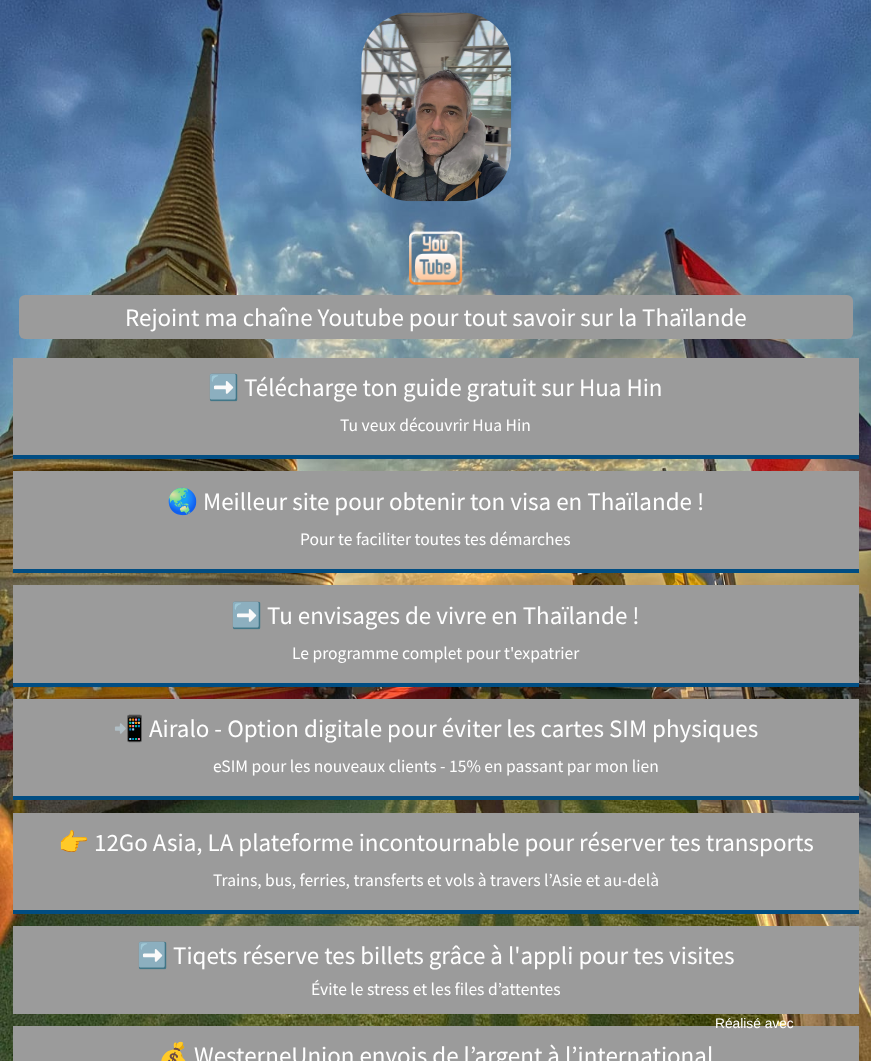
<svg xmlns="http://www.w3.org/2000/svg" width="871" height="1061">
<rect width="100%" height="100%" fill="#fff"/>
<image x="0" y="0" width="871" height="1061" href="media/1.png"/>
<image x="361" y="12" width="151" height="190" href="media/2.png"/>
<image x="409" y="231" width="54" height="54" href="media/3.png"/>
<rect x="19" y="295" width="834" height="44" rx="6" fill="#9b9b9b"/>
<text x="125" y="326" style="font-family:Source Sans Pro;font-size:25px;fill:#fff">Rejoint ma chaîne Youtube pour tout savoir sur la Thaïlande</text>
<rect x="13" y="358" width="846" height="97" fill="#9b9b9b"/>
<rect x="13" y="455" width="846" height="4" fill="#014d82"/>
<text x="208" y="396" style="font-family:Noto Color Emoji;font-size:25px;fill:#fff">➡️</text>
<text x="244" y="396" style="font-family:Source Sans Pro;font-size:25px;fill:#fff">Télécharge ton guide gratuit sur Hua Hin</text>
<text x="340" y="431" style="font-family:Source Sans Pro;font-size:17.5px;fill:#fff">Tu veux découvrir Hua Hin</text>
<rect x="13" y="471" width="846" height="98" fill="#9b9b9b"/>
<rect x="13" y="569" width="846" height="4" fill="#014d82"/>
<text x="167" y="510" style="font-family:Noto Color Emoji;font-size:25px;fill:#fff">🌏</text>
<text x="203" y="510" style="font-family:Source Sans Pro;font-size:25px;fill:#fff">Meilleur site pour obtenir ton visa en Thaïlande !</text>
<text x="300" y="545" style="font-family:Source Sans Pro;font-size:17.5px;fill:#fff">Pour te faciliter toutes tes démarches</text>
<rect x="13" y="585" width="846" height="98" fill="#9b9b9b"/>
<rect x="13" y="683" width="846" height="4" fill="#014d82"/>
<text x="231" y="624" style="font-family:Noto Color Emoji;font-size:25px;fill:#fff">➡️</text>
<text x="267" y="624" style="font-family:Source Sans Pro;font-size:25px;fill:#fff">Tu envisages de vivre en Thaïlande !</text>
<text x="292" y="659" style="font-family:Source Sans Pro;font-size:17.5px;fill:#fff">Le programme complet pour t'expatrier</text>
<rect x="13" y="699" width="846" height="97" fill="#9b9b9b"/>
<rect x="13" y="796" width="846" height="4" fill="#014d82"/>
<text x="113" y="737" style="font-family:Noto Color Emoji;font-size:25px;fill:#fff">📲</text>
<text x="149" y="737" style="font-family:Source Sans Pro;font-size:25px;fill:#fff">Airalo - Option digitale pour éviter les cartes SIM physiques</text>
<text x="213" y="772" style="font-family:Source Sans Pro;font-size:17.5px;fill:#fff">eSIM pour les nouveaux clients - 15% en passant par mon lien</text>
<rect x="13" y="813" width="846" height="97" fill="#9b9b9b"/>
<rect x="13" y="910" width="846" height="4" fill="#014d82"/>
<text x="58" y="851" style="font-family:Noto Color Emoji;font-size:25px;fill:#fff">👉</text>
<text x="94" y="851" style="font-family:Source Sans Pro;font-size:25px;fill:#fff">12Go Asia, LA plateforme incontournable pour réserver tes transports</text>
<text x="213" y="886" style="font-family:Source Sans Pro;font-size:17.5px;fill:#fff">Trains, bus, ferries, transferts et vols à travers l’Asie et au-delà</text>
<rect x="13" y="926" width="846" height="88" fill="#9b9b9b"/>
<text x="137" y="964" style="font-family:Noto Color Emoji;font-size:25px;fill:#fff">➡️</text>
<text x="173" y="964" style="font-family:Source Sans Pro;font-size:25px;fill:#fff">Tiqets réserve tes billets grâce à l'appli pour tes visites</text>
<text x="311" y="995" style="font-family:Source Sans Pro;font-size:17.5px;fill:#fff">Évite le stress et les files d’attentes</text>
<rect x="13" y="1026" width="846" height="35" fill="#9b9b9b"/>
<text x="158" y="1064" style="font-family:Noto Color Emoji;font-size:25px;fill:#fff">💰</text>
<text x="194" y="1064" style="font-family:Source Sans Pro;font-size:25px;fill:#fff">WesterneUnion envois de l’argent à l’international</text>
<text x="715" y="1028" style="font-family:Liberation Sans;font-size:13.75px;fill:#fff">Réalisé avec</text>
</svg>
